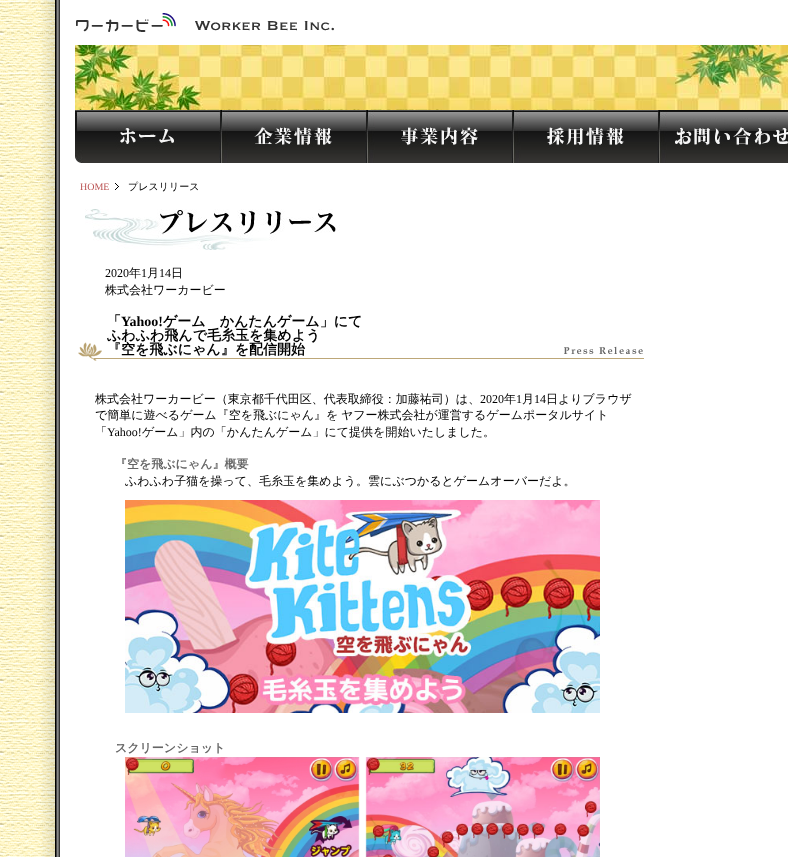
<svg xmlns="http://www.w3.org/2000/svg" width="788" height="857">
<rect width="100%" height="100%" fill="#fff"/>
<image x="0" y="0" width="40" height="857" href="media/1.png"/>
<image x="40" y="0" width="20" height="857" href="media/2.png"/>
<image x="76" y="13" width="258" height="19" href="media/3.png"/>
<image x="75" y="45" width="713" height="65" href="media/4.png"/>
<image x="75" y="110" width="146" height="53" href="media/5.png"/>
<image x="221" y="110" width="146" height="53" href="media/6.png"/>
<image x="367" y="110" width="146" height="53" href="media/7.png"/>
<image x="513" y="110" width="146" height="53" href="media/8.png"/>
<image x="659" y="110" width="129" height="53" href="media/9.png"/>
<text x="80" y="190" style="font-family:Liberation Serif;font-size:10px;fill:#b55">HOME</text>
<image x="115" y="183" width="4" height="7" href="media/10.png"/>
<text x="128" y="190" style="font-family:WenQuanYi Zen Hei;font-size:10px;font-weight:500;fill:#000">プレスリリース</text>
<image x="85" y="209" width="255" height="41" href="media/11.png"/>
<text x="105" y="277" style="font-family:Liberation Serif;font-size:12px;fill:#000">2020</text>
<text x="129" y="277" style="font-family:WenQuanYi Zen Hei;font-size:12px;font-weight:500;fill:#000">年</text>
<text x="141" y="277" style="font-family:Liberation Serif;font-size:12px;fill:#000">1</text>
<text x="147" y="277" style="font-family:WenQuanYi Zen Hei;font-size:12px;font-weight:500;fill:#000">月</text>
<text x="159" y="277" style="font-family:Liberation Serif;font-size:12px;fill:#000">14</text>
<text x="171" y="277" style="font-family:WenQuanYi Zen Hei;font-size:12px;font-weight:500;fill:#000">日</text>
<text x="105" y="294" style="font-family:WenQuanYi Zen Hei;font-size:12px;font-weight:500;fill:#000">株式会社ワーカービー</text>
<image x="78" y="342" width="566" height="19" href="media/12.png"/>
<text x="107" y="326" style="font-family:WenQuanYi Zen Hei;font-size:14px;font-weight:bold;fill:#000">「</text>
<text x="121" y="326" style="font-family:Liberation Serif;font-size:14px;font-weight:bold;fill:#000">Yahoo!</text>
<text x="163" y="326" style="font-family:WenQuanYi Zen Hei;font-size:14px;font-weight:bold;fill:#000">ゲーム　かんたんゲーム」にて</text>
<text x="107" y="340" style="font-family:WenQuanYi Zen Hei;font-size:14px;font-weight:bold;fill:#000">ふわふわ飛んで毛糸玉を集めよう</text>
<text x="107" y="354" style="font-family:WenQuanYi Zen Hei;font-size:14px;font-weight:bold;fill:#000">『空を飛ぶにゃん』を配信開始</text>
<text x="95" y="403" style="font-family:WenQuanYi Zen Hei;font-size:12px;font-weight:500;fill:#000">株式会社ワーカービー（東京都千代田区、代表取締役：加藤祐司）は、</text>
<text x="480" y="403" style="font-family:Liberation Serif;font-size:12px;fill:#000">2020</text>
<text x="504" y="403" style="font-family:WenQuanYi Zen Hei;font-size:12px;font-weight:500;fill:#000">年</text>
<text x="516" y="403" style="font-family:Liberation Serif;font-size:12px;fill:#000">1</text>
<text x="522" y="403" style="font-family:WenQuanYi Zen Hei;font-size:12px;font-weight:500;fill:#000">月</text>
<text x="534" y="403" style="font-family:Liberation Serif;font-size:12px;fill:#000">14</text>
<text x="546" y="403" style="font-family:WenQuanYi Zen Hei;font-size:12px;font-weight:500;fill:#000">日よりブラウザ</text>
<text x="95" y="419" word-spacing="-1" style="font-family:WenQuanYi Zen Hei;font-size:12px;font-weight:500;fill:#000">で簡単に遊べるゲーム『空を飛ぶにゃん』を ヤフー株式会社が運営するゲームポータルサイト</text>
<text x="95" y="436" style="font-family:WenQuanYi Zen Hei;font-size:12px;font-weight:500;fill:#000">「</text>
<text x="107" y="436" style="font-family:Liberation Serif;font-size:12px;fill:#000">Yahoo!</text>
<text x="142" y="436" style="font-family:WenQuanYi Zen Hei;font-size:12px;font-weight:500;fill:#000">ゲーム」内の「かんたんゲーム」にて提供を開始いたしました。</text>
<text x="115" y="468" style="font-family:WenQuanYi Zen Hei;font-size:12px;font-weight:bold;fill:#666">『空を飛ぶにゃん』概要</text>
<text x="125" y="485" style="font-family:WenQuanYi Zen Hei;font-size:12px;font-weight:500;fill:#000">ふわふわ子猫を操って、毛糸玉を集めよう。雲にぶつかるとゲームオーバーだよ。</text>
<image x="125" y="500" width="475" height="213" href="media/13.png"/>
<text x="115" y="752" style="font-family:WenQuanYi Zen Hei;font-size:12px;font-weight:bold;fill:#666">スクリーンショット</text>
<image x="125" y="757" width="475" height="100" href="media/14.png"/>
</svg>
